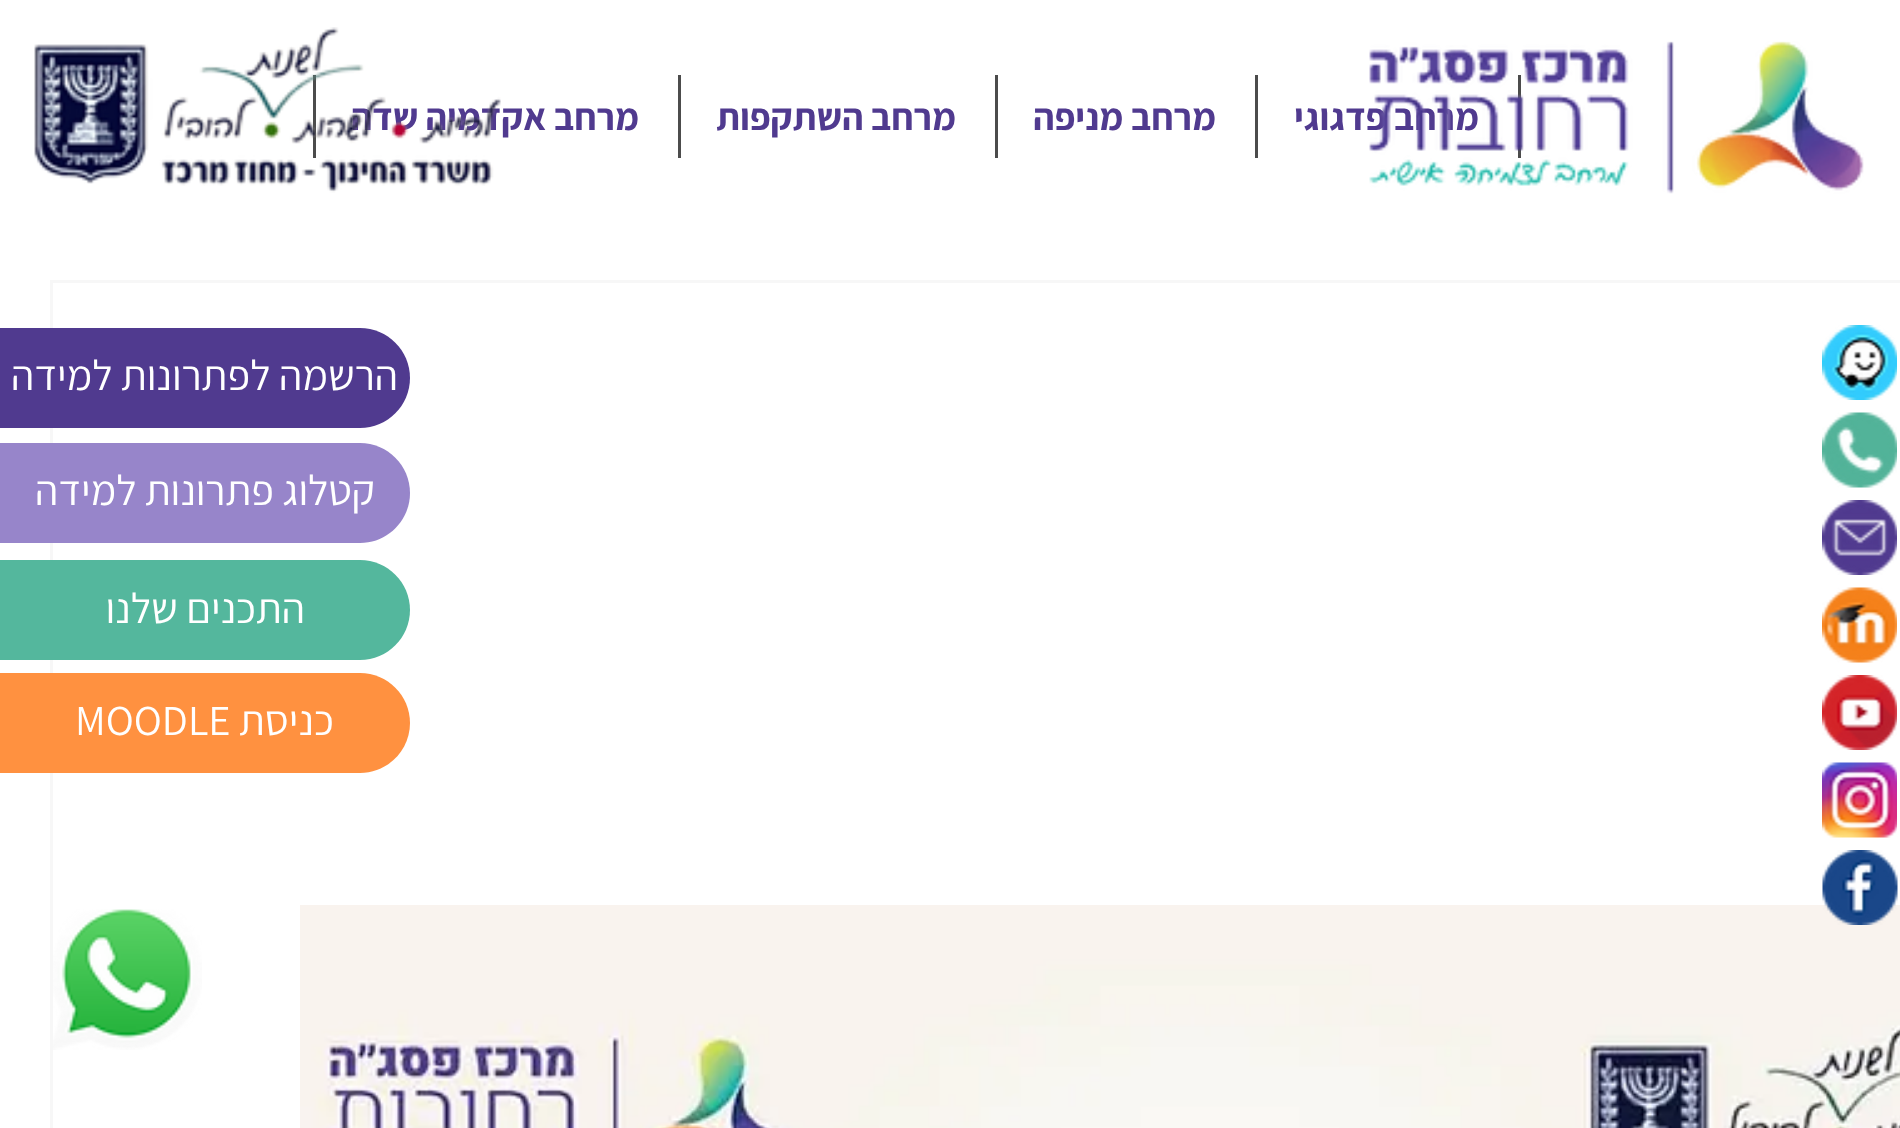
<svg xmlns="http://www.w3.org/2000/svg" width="1900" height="1128">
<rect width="100%" height="100%" fill="#fff"/>
<rect x="1518" y="75" width="3" height="83" fill="#4c4c4c"/>
<text x="1479" y="130" style="font-family:Assistant;font-size:37.5px;font-weight:bold;direction:rtl;fill:#503a8f">מרחב פדגוגי</text>
<image x="1369" y="41" width="495" height="153" href="media/1.png"/>
<rect x="1255" y="75" width="3" height="83" fill="#4c4c4c"/>
<rect x="995" y="75" width="3" height="83" fill="#4c4c4c"/>
<text x="1216" y="130" style="font-family:Assistant;font-size:37.5px;font-weight:bold;direction:rtl;fill:#503a8f">מרחב מניפה</text>
<rect x="678" y="75" width="3" height="83" fill="#4c4c4c"/>
<text x="956" y="130" style="font-family:Assistant;font-size:37.5px;font-weight:bold;direction:rtl;fill:#503a8f">מרחב השתקפות</text>
<rect x="313" y="75" width="3" height="83" fill="#4c4c4c"/>
<text x="639" y="130" style="font-family:Assistant;font-size:37.5px;font-weight:bold;direction:rtl;fill:#503a8f">מרחב אקדמיה שדה</text>
<rect x="51.5" y="281.5" width="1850" height="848" fill="none" stroke="#f7f7f7" stroke-width="3"/>
<image x="300" y="905" width="1600" height="223" href="media/2.png"/>
<image x="1822" y="325" width="75" height="75" href="media/3.png"/>
<image x="1822" y="412" width="75" height="76" href="media/4.png"/>
<image x="1822" y="500" width="75" height="75" href="media/5.png"/>
<image x="1822" y="587" width="75" height="76" href="media/6.png"/>
<image x="1822" y="675" width="75" height="75" href="media/7.png"/>
<image x="1822" y="762" width="75" height="76" href="media/8.png"/>
<image x="1822" y="850" width="76" height="75" href="media/9.png"/>
<image x="34" y="27" width="467" height="166" href="media/10.png"/>
<path d="M0 328h360c27.5 0 50 22.5 50 50c0 27.5-22.5 50-50 50h-360z" fill="#503a8f"/>
<text x="398" y="390" style="font-family:Assistant;font-size:42.5px;direction:rtl;fill:#fff">הרשמה לפתרונות למידה</text>
<path d="M0 443h360c27.5 0 50 22.5 50 50c0 27.5-22.5 50-50 50h-360z" fill="#9785ca"/>
<text x="375" y="505" style="font-family:Assistant;font-size:42.5px;direction:rtl;fill:#fff">קטלוג פתרונות למידה</text>
<path d="M0 560h360c27.5 0 50 22.5 50 50c0 27.5-22.5 50-50 50h-360z" fill="#54b79d"/>
<text x="305" y="623" style="font-family:Assistant;font-size:42.5px;direction:rtl;fill:#fff">התכנים שלנו</text>
<path d="M0 673h360c27.5 0 50 22.5 50 50c0 27.5-22.5 50-50 50h-360z" fill="#ff9140"/>
<text x="334" y="735" style="font-family:Assistant;font-size:42.5px;direction:rtl;fill:#fff">כניסת</text>
<text x="75" y="735" style="font-family:Assistant;font-size:42.5px;fill:#fff">MOODLE</text>
<image x="53" y="909" width="149" height="141" href="media/11.png"/>
</svg>
